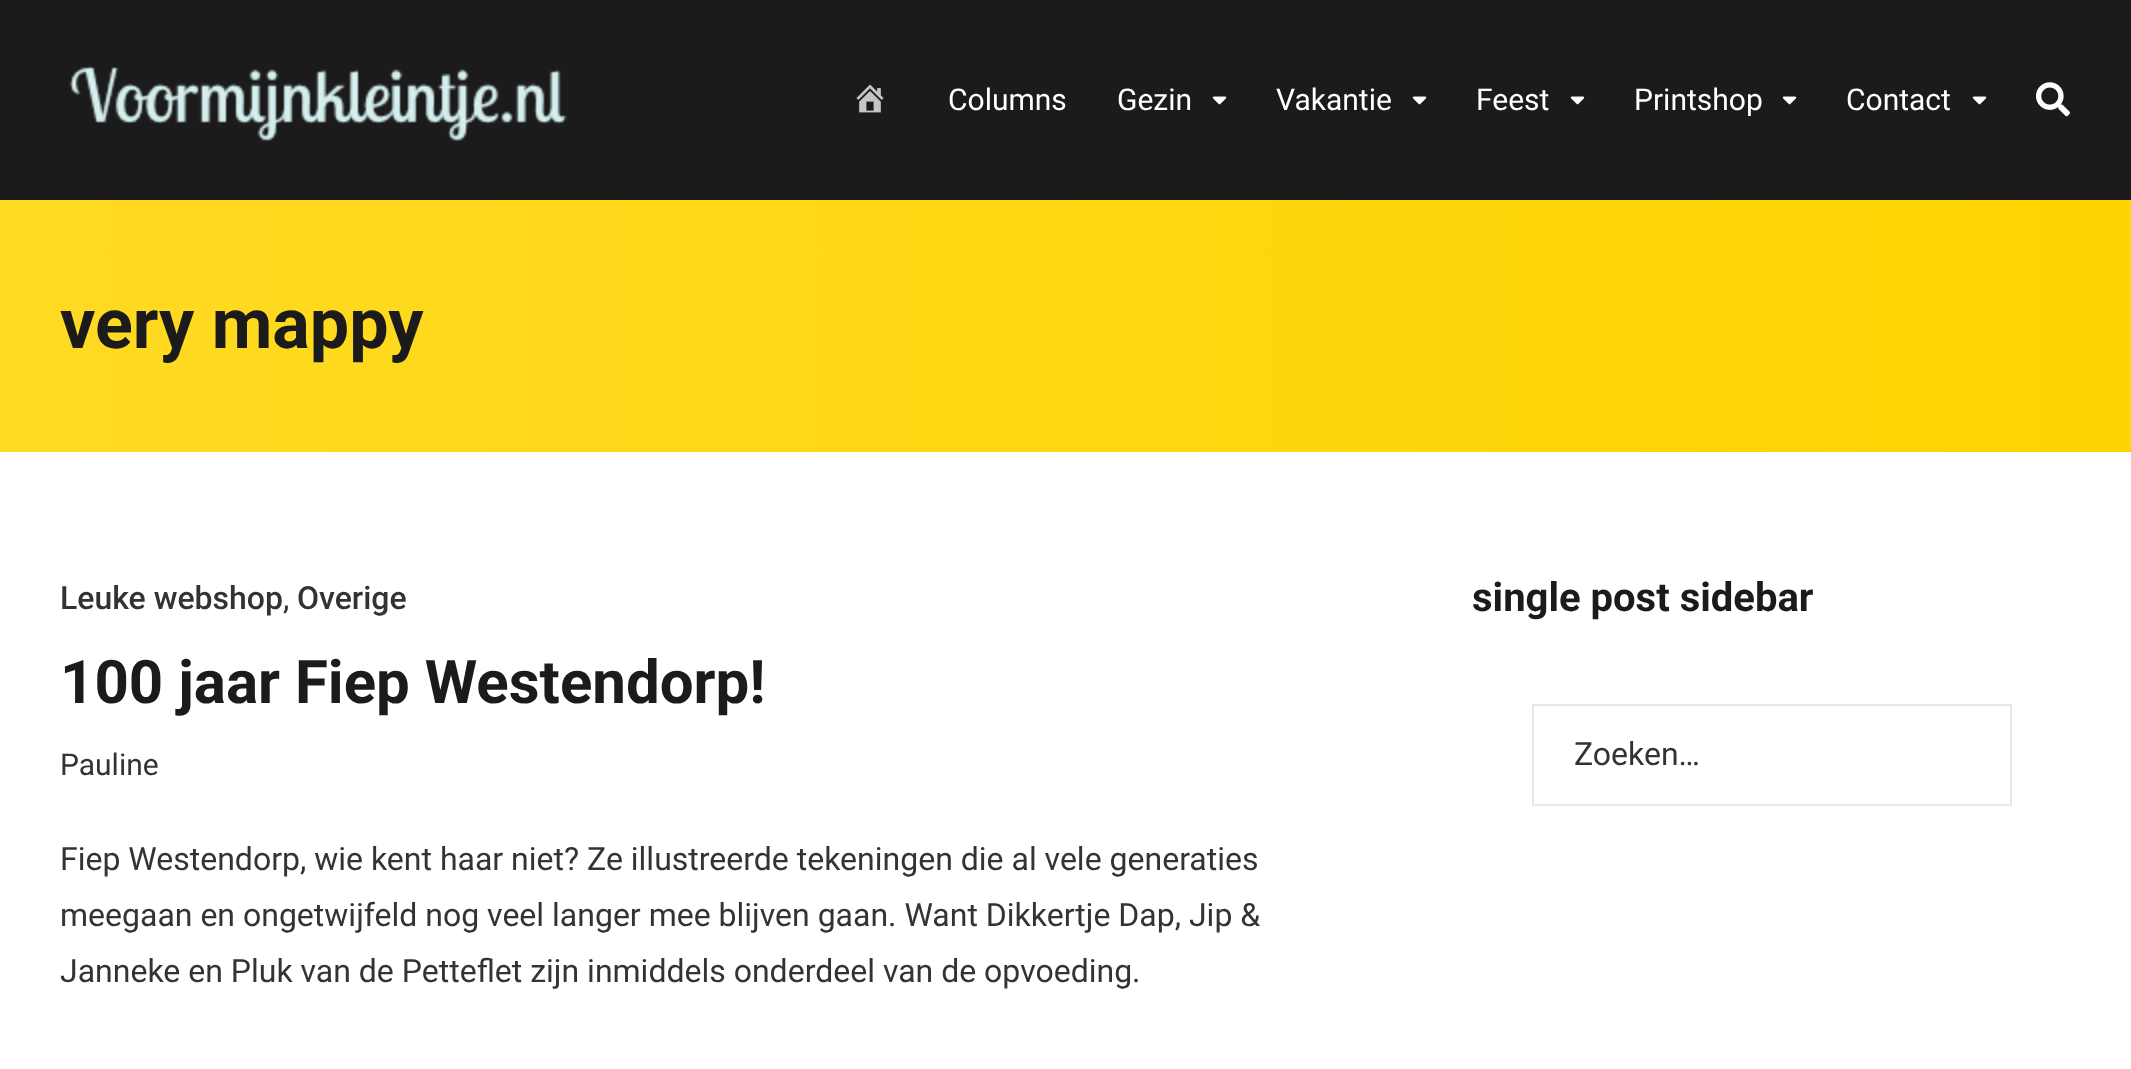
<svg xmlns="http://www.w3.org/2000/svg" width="2131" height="1069">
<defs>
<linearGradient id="g1" gradientUnits="userSpaceOnUse" x1="0" y1="326" x2="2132" y2="326"><stop offset="0" stop-color="#ffda23"/><stop offset="1" stop-color="#ffd400"/></linearGradient>
</defs>
<rect width="100%" height="100%" fill="#fff"/>
<rect width="2131" height="200" fill="#1b1b1b"/>
<image x="69" y="65" width="498" height="76" href="media/1.png"/>
<image x="856" y="84" width="28" height="29" href="media/2.png"/>
<text x="948" y="110" style="font-family:Roboto;font-size:30px;fill:#fff">Columns</text>
<text x="1117" y="110" style="font-family:Roboto;font-size:30px;fill:#fff">Gezin</text>
<image x="1212" y="96" width="15" height="9" href="media/3.png"/>
<text x="1276" y="110" style="font-family:Roboto;font-size:30px;fill:#fff">Vakantie</text>
<image x="1412" y="96" width="15" height="9" href="media/3.png"/>
<text x="1476" y="110" style="font-family:Roboto;font-size:30px;fill:#fff">Feest</text>
<image x="1570" y="96" width="15" height="9" href="media/3.png"/>
<text x="1634" y="110" style="font-family:Roboto;font-size:30px;fill:#fff">Printshop</text>
<image x="1782" y="96" width="15" height="9" href="media/3.png"/>
<text x="1846" y="110" style="font-family:Roboto;font-size:30px;fill:#fff">Contact</text>
<image x="1972" y="96" width="15" height="9" href="media/3.png"/>
<image x="2036" y="82" width="34" height="35" href="media/4.png"/>
<rect y="200" width="2131" height="252" fill="url(#g1)"/>
<text x="60" y="348" style="font-family:Roboto;font-size:70px;font-weight:bold;fill:#1b1b1b">very mappy</text>
<text x="60" y="609" style="font-family:Roboto;font-size:32px;font-weight:500;fill:#333">Leuke webshop</text>
<text x="283" y="609" style="font-family:Roboto;font-size:32px;fill:#333">,</text>
<text x="297" y="609" style="font-family:Roboto;font-size:32px;font-weight:500;fill:#333">Overige</text>
<text x="60" y="703" style="font-family:Roboto;font-size:60px;font-weight:bold;fill:#1b1b1b">100 jaar Fiep Westendorp!</text>
<text x="60" y="775" style="font-family:Roboto;font-size:30px;fill:#333">Pauline</text>
<text x="60" y="870" style="font-family:Roboto;font-size:32px;fill:#333">Fiep Westendorp, wie kent haar niet? Ze illustreerde tekeningen die al vele generaties</text>
<text x="60" y="926" style="font-family:Roboto;font-size:32px;fill:#333">meegaan en ongetwijfeld nog veel langer mee blijven gaan. Want Dikkertje Dap, Jip &amp;</text>
<text x="60" y="982" style="font-family:Roboto;font-size:32px;fill:#333">Janneke en Pluk van de Petteflet zijn inmiddels onderdeel van de opvoeding.</text>
<text x="1472" y="611" style="font-family:Roboto;font-size:40px;font-weight:bold;fill:#1b1b1b">single post sidebar</text>
<rect x="1533" y="705" width="478" height="100" fill="none" stroke="#e6e7e8" stroke-width="2"/>
<text x="1574" y="765" style="font-family:Roboto;font-size:32px;fill:#333">Zoeken…</text>
</svg>
